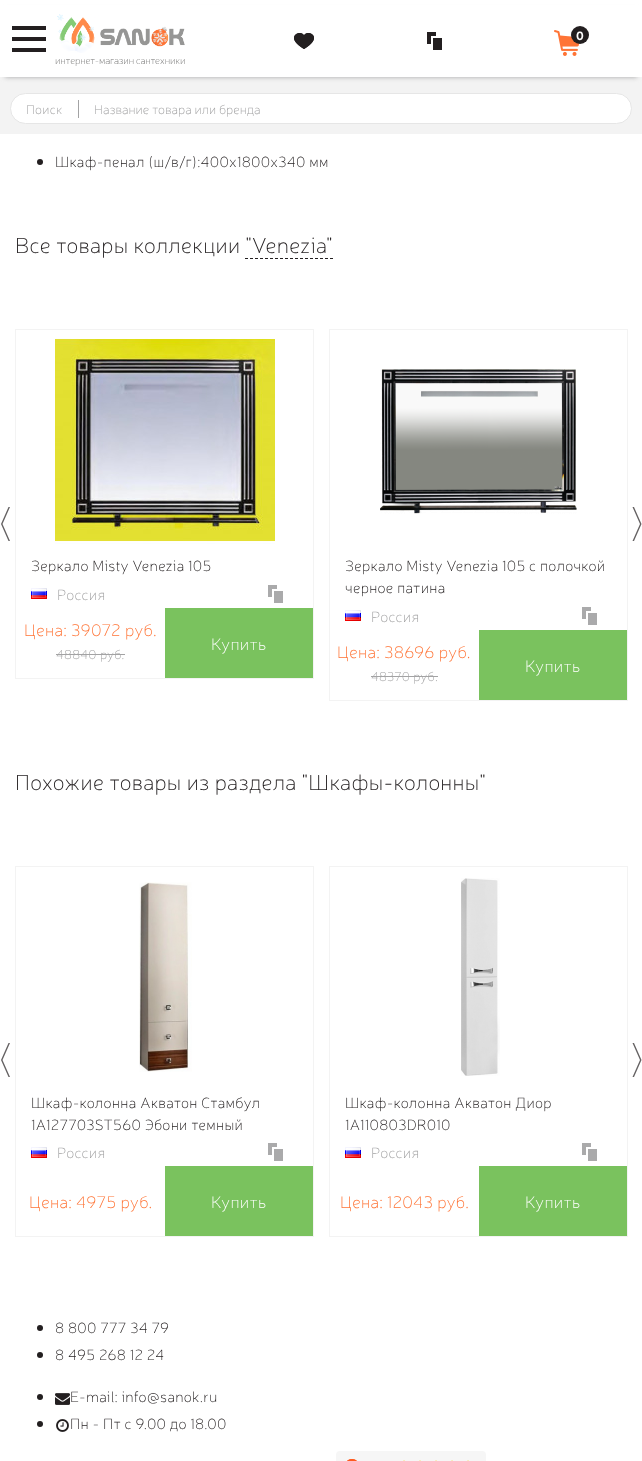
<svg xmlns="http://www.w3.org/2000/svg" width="642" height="1461">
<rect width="100%" height="100%" fill="#fff"/>
<rect y="77" width="642" height="57" fill="#f3f3f3"/>
<rect x="5" y="10" width="632" height="67" fill="#a3a3a4" filter="blur(2.5px)"/>
<rect y="5" width="642" height="72" fill="#fff"/>
<rect x="12" y="26" width="34" height="4" fill="#231f20"/>
<rect x="12" y="37" width="34" height="4" fill="#231f20"/>
<rect x="12" y="48" width="34" height="4" fill="#231f20"/>
<image x="294" y="33" width="20" height="16" href="media/1.png"/>
<image x="427" y="32" width="15" height="18" href="media/2.png"/>
<image x="554" y="30" width="26" height="26" href="media/3.png"/>
<circle cx="580" cy="35" r="9" fill="#231f20"/>
<text x="576" y="40" style="font-family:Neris;font-size:12px;font-weight:bold;letter-spacing:1px;fill:#fff">0</text>
<image x="57" y="14" width="128" height="39" href="media/4.png"/>
<text x="55" y="64" style="font-family:Neris;font-size:10px;font-weight:100;letter-spacing:-0.15px;fill:#727271">интернет-магазин сантехники</text>
<rect x="10.5" y="93.5" width="621" height="30" rx="15" fill="#fff" stroke="#e6e6e6"/>
<text x="26" y="114" style="font-family:Neris;font-size:13px;font-weight:100;letter-spacing:0.3px;fill:#a3a3a4">Поиск</text>
<rect x="78" y="100" width="1" height="18" fill="#a3a3a4"/>
<text x="94" y="114" style="font-family:Neris;font-size:13px;font-weight:100;fill:#a3a3a4">Название товара или бренда</text>
<circle cx="40" cy="162" r="3" fill="#231f20"/>
<text x="55" y="167" style="font-family:Neris;font-size:15px;font-weight:100;letter-spacing:0.3px;fill:#231f20">Шкаф-пенал (ш/в/г):400x1800x340 мм</text>
<text x="15" y="253" style="font-family:Neris;font-size:22px;font-weight:100;letter-spacing:0.3px;fill:#231f20">Все товары коллекции "Venezia"</text>
<path d="M245 258.5h88" fill="none" stroke="#231f20" stroke-dasharray="3 2"/>
<path d="M8.5 507l-7.5 17l7.5 17h1.5l-7.5-17l7.5-17z" fill="#656263"/>
<path d="M634 507l7.5 17l-7.5 17h-1.5l7.5-17l-7.5-17z" fill="#656263"/>
<rect x="15.5" y="329.5" width="298" height="349" fill="none" stroke="#f3f3f3"/>
<image x="55" y="338" width="220" height="206" href="media/5.png"/>
<text x="31" y="571" style="font-family:Neris;font-size:15px;font-weight:100;letter-spacing:0.3px;fill:#231f20">Зеркало Misty Venezia 105</text>
<image x="31" y="588" width="16" height="11" href="media/6.png"/>
<text x="57" y="600" style="font-family:Neris;font-size:15px;font-weight:100;letter-spacing:0.3px;fill:#a3a3a4">Россия</text>
<image x="268" y="585" width="15" height="18" href="media/7.png"/>
<text x="24" y="636" style="font-family:Neris;font-size:17px;font-weight:100;letter-spacing:0.3px;fill:#ff7436">Цена: 39072 руб.</text>
<text x="56" y="659" style="font-family:Neris;font-size:13px;font-weight:100;letter-spacing:0.3px;fill:#a3a3a4">48840 руб.</text>
<rect x="56" y="654" width="69" height="1" fill="#a3a3a4"/>
<rect x="165" y="608" width="148" height="70" fill="#7ac25e"/>
<text x="211" y="650" style="font-family:Neris;font-size:17px;font-weight:100;letter-spacing:0.3px;fill:#fff">Купить</text>
<rect x="329.5" y="329.5" width="298" height="371" fill="none" stroke="#f3f3f3"/>
<image x="380" y="369" width="197" height="145" href="media/8.png"/>
<text x="345" y="571" style="font-family:Neris;font-size:15px;font-weight:100;letter-spacing:0.3px;fill:#231f20">Зеркало Misty Venezia 105 с полочкой</text>
<text x="345" y="593" style="font-family:Neris;font-size:15px;font-weight:100;letter-spacing:0.3px;fill:#231f20">черное патина</text>
<image x="345" y="610" width="16" height="11" href="media/6.png"/>
<text x="371" y="622" style="font-family:Neris;font-size:15px;font-weight:100;letter-spacing:0.3px;fill:#a3a3a4">Россия</text>
<image x="582" y="607" width="15" height="18" href="media/7.png"/>
<text x="337" y="658" style="font-family:Neris;font-size:17px;font-weight:100;letter-spacing:0.3px;fill:#ff7436">Цена: 38696 руб.</text>
<text x="371" y="681" style="font-family:Neris;font-size:13px;font-weight:100;letter-spacing:0.3px;fill:#a3a3a4">48370 руб.</text>
<rect x="371" y="676" width="67" height="1" fill="#a3a3a4"/>
<rect x="479" y="630" width="148" height="70" fill="#7ac25e"/>
<text x="525" y="672" style="font-family:Neris;font-size:17px;font-weight:100;letter-spacing:0.3px;fill:#fff">Купить</text>
<text x="15" y="790" style="font-family:Neris;font-size:22px;font-weight:100;letter-spacing:0.3px;fill:#231f20">Похожие товары из раздела "Шкафы-колонны"</text>
<path d="M8.5 1043l-7.5 17l7.5 17h1.5l-7.5-17l7.5-17z" fill="#656263"/>
<path d="M634 1043l7.5 17l-7.5 17h-1.5l7.5-17l-7.5-17z" fill="#656263"/>
<rect x="15.5" y="866.5" width="298" height="370" fill="none" stroke="#f3f3f3"/>
<image x="139" y="882" width="53" height="190" href="media/9.png"/>
<text x="31" y="1108" style="font-family:Neris;font-size:15px;font-weight:100;letter-spacing:0.3px;fill:#231f20">Шкаф-колонна Акватон Стамбул</text>
<text x="31" y="1130" style="font-family:Neris;font-size:15px;font-weight:100;letter-spacing:0.3px;fill:#231f20">1A127703ST560 Эбони темный</text>
<image x="31" y="1147" width="16" height="11" href="media/6.png"/>
<text x="57" y="1158" style="font-family:Neris;font-size:15px;font-weight:100;letter-spacing:0.3px;fill:#a3a3a4">Россия</text>
<image x="268" y="1143" width="15" height="18" href="media/7.png"/>
<text x="29" y="1208" style="font-family:Neris;font-size:17px;font-weight:100;letter-spacing:0.3px;fill:#ff7436">Цена: 4975 руб.</text>
<rect x="165" y="1166" width="148" height="70" fill="#7ac25e"/>
<text x="211" y="1208" style="font-family:Neris;font-size:17px;font-weight:100;letter-spacing:0.3px;fill:#fff">Купить</text>
<rect x="329.5" y="866.5" width="298" height="370" fill="none" stroke="#f3f3f3"/>
<image x="461" y="878" width="39" height="198" href="media/10.png"/>
<text x="345" y="1108" style="font-family:Neris;font-size:15px;font-weight:100;letter-spacing:0.3px;fill:#231f20">Шкаф-колонна Акватон Диор</text>
<text x="345" y="1130" style="font-family:Neris;font-size:15px;font-weight:100;letter-spacing:0.3px;fill:#231f20">1A110803DR010</text>
<image x="345" y="1147" width="16" height="11" href="media/6.png"/>
<text x="371" y="1158" style="font-family:Neris;font-size:15px;font-weight:100;letter-spacing:0.3px;fill:#a3a3a4">Россия</text>
<image x="582" y="1143" width="15" height="18" href="media/7.png"/>
<text x="340" y="1208" style="font-family:Neris;font-size:17px;font-weight:100;letter-spacing:0.3px;fill:#ff7436">Цена: 12043 руб.</text>
<rect x="479" y="1166" width="148" height="70" fill="#7ac25e"/>
<text x="525" y="1208" style="font-family:Neris;font-size:17px;font-weight:100;letter-spacing:0.3px;fill:#fff">Купить</text>
<circle cx="40" cy="1328" r="3" fill="#231f20"/>
<text x="55" y="1333" style="font-family:Neris;font-size:15px;font-weight:100;letter-spacing:0.3px;fill:#231f20">8 800 777 34 79</text>
<circle cx="40" cy="1355" r="3" fill="#231f20"/>
<text x="55" y="1360" style="font-family:Neris;font-size:15px;font-weight:100;letter-spacing:0.3px;fill:#231f20">8 495 268 12 24</text>
<circle cx="40" cy="1397" r="3" fill="#231f20"/>
<image x="55" y="1393" width="15" height="12" href="media/11.png"/>
<text x="70" y="1402" style="font-family:Neris;font-size:15px;font-weight:100;letter-spacing:0.3px;fill:#231f20">E-mail: info@sanok.ru</text>
<circle cx="40" cy="1424" r="3" fill="#231f20"/>
<image x="56" y="1419" width="13" height="13" href="media/12.png"/>
<text x="70" y="1429" style="font-family:Neris;font-size:15px;font-weight:100;letter-spacing:0.3px;fill:#231f20">Пн - Пт с 9.00 до 18.00</text>
<image x="336" y="1451" width="150" height="10" href="media/13.png"/>
</svg>
